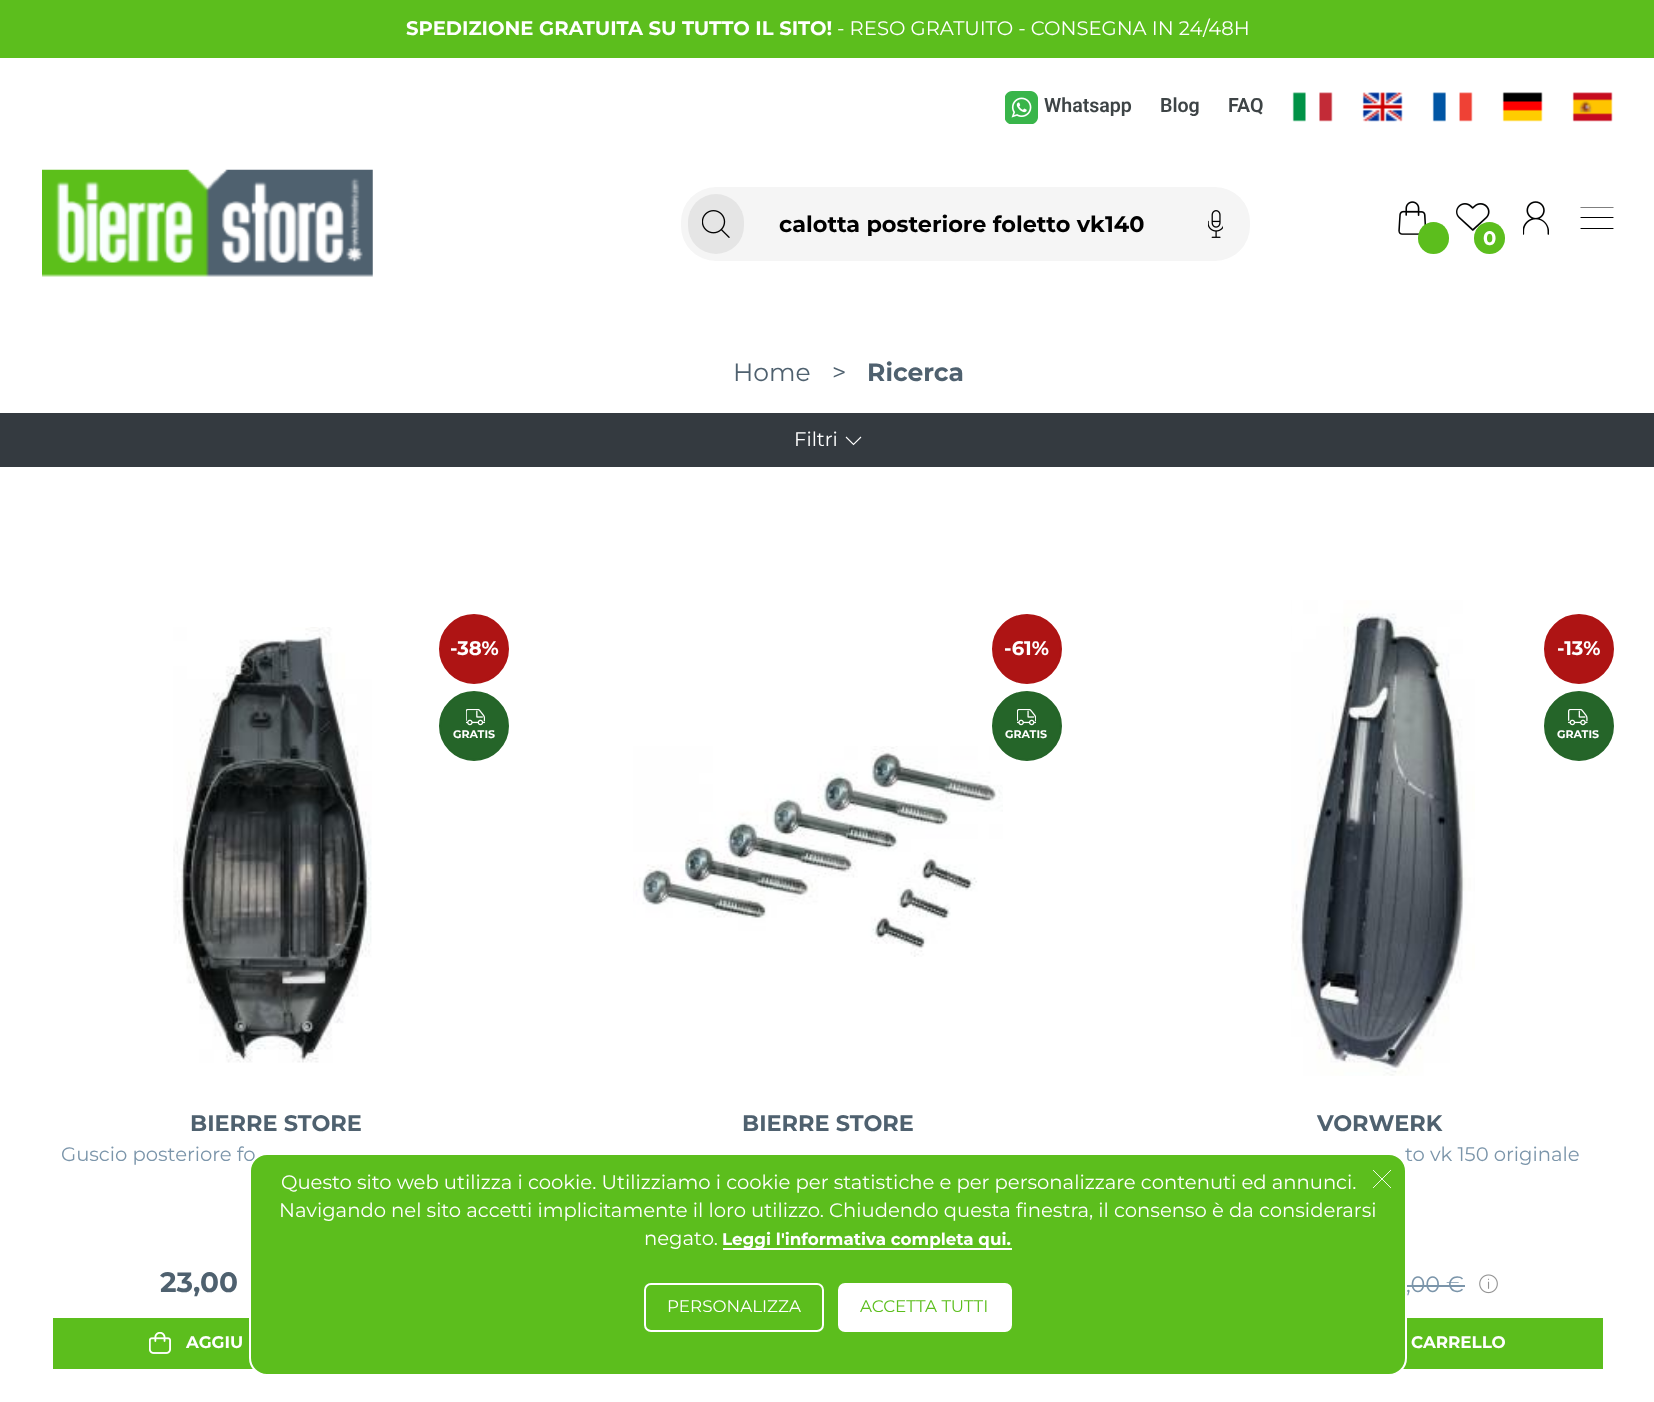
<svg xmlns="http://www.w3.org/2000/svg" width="1654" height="1402">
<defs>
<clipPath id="clip1"><rect x="779" y="210" width="373" height="26"/></clipPath>
<clipPath id="clip2"><rect x="1580" y="207" width="34" height="22"/></clipPath>
</defs>
<rect width="100%" height="100%" fill="#fff"/>
<rect width="1654" height="58" fill="#5cbe1d"/>
<text x="406" y="35" style="font-family:Montserrat;font-size:19.6px;font-weight:bold;fill:#fff">SPEDIZIONE GRATUITA SU TUTTO IL SITO!</text>
<text x="837" y="35" style="font-family:Montserrat;font-size:19.6px;fill:#fff">- RESO GRATUITO - CONSEGNA IN 24/48H</text>
<image x="1005" y="91" width="33" height="33" href="media/1.png"/>
<text x="1044" y="112" style="font-family:Roboto;font-size:19.6px;font-weight:600;fill:#3e4446">Whatsapp</text>
<text x="1160" y="112" style="font-family:Roboto;font-size:19.6px;font-weight:600;fill:#3e4446">Blog</text>
<text x="1228" y="112" style="font-family:Roboto;font-size:19.6px;font-weight:600;fill:#3e4446">FAQ</text>
<image x="1292" y="92" width="41" height="30" href="media/2.png"/>
<image x="1362" y="92" width="41" height="30" href="media/3.png"/>
<image x="1432" y="92" width="41" height="30" href="media/4.png"/>
<image x="1502" y="92" width="41" height="30" href="media/5.png"/>
<image x="1572" y="92" width="41" height="30" href="media/6.png"/>
<image x="42" y="169" width="331" height="108" href="media/7.png"/>
<rect x="681" y="187" width="569" height="74" rx="35" fill="#f5f5f5"/>
<rect x="688" y="194" width="56" height="60" rx="28" fill="#e5e5e5"/>
<image x="702" y="210" width="28" height="28" href="media/8.png"/>
<g clip-path="url(#clip1)">
<text x="779" y="232" style="font-family:Montserrat;font-size:22.4px;font-weight:bold;fill:#000">calotta posteriore foletto vk140</text>
</g>
<image x="1208" y="210" width="15" height="28" href="media/9.png"/>
<image x="1398" y="201" width="28" height="34" href="media/10.png"/>
<rect x="1418" y="222" width="31" height="32" rx="15.5" fill="#5cbe1d"/>
<image x="1523" y="201" width="26" height="34" href="media/11.png"/>
<g clip-path="url(#clip2)">
<path d="M1581 207h32m-32 21.5h32" fill="none" stroke="#000" stroke-width="1.2" stroke-linecap="round"/>
</g>
<path d="M1581 217.5h32" fill="none" stroke="#000" stroke-width="1.2" stroke-linecap="round"/>
<image x="1456" y="203" width="34" height="28" href="media/12.png"/>
<rect x="1474" y="222" width="31" height="32" rx="15.5" fill="#5cbe1d"/>
<text x="1483" y="245" style="font-family:Montserrat;font-size:19.6px;font-weight:bold;fill:#fff">0</text>
<text x="733" y="381" style="font-family:Montserrat;font-size:25px;fill:#4f616f">Home</text>
<text x="832" y="381" style="font-family:Montserrat;font-size:25px;fill:#4f616f">&gt;</text>
<text x="867" y="381" style="font-family:Montserrat;font-size:25px;font-weight:bold;fill:#4f616f">Ricerca</text>
<rect y="413" width="1654" height="54" fill="#343a40"/>
<text x="794" y="446" style="font-family:Montserrat;font-size:19.6px;fill:#fff">Filtri</text>
<path d="M861 437l-7.5 7.5l-7.5-7.5" fill="none" stroke="#fff" stroke-width="1.1"/>
<image x="173" y="627" width="199" height="436" href="media/13.png"/>
<circle cx="474" cy="649" r="34" fill="#ae1414" stroke="#ae1414" stroke-width="2"/>
<text x="450" y="655" style="font-family:Montserrat;font-size:19.6px;font-weight:bold;fill:#fff">-38%</text>
<circle cx="474" cy="726" r="34" fill="#256529" stroke="#256529" stroke-width="2"/>
<image x="466" y="709" width="19" height="17" href="media/14.png"/>
<text x="453" y="738" style="font-family:Montserrat;font-size:11px;font-weight:bold;fill:#fff">GRATIS</text>
<text x="190" y="1131" style="font-family:Montserrat;font-size:22.4px;font-weight:bold;fill:#4f616f">BIERRE STORE</text>
<text x="61" y="1161" style="font-family:Montserrat;font-size:19.6px;fill:#7b95aa">Guscio posteriore fo</text>
<text x="160" y="1292" style="font-family:Montserrat;font-size:28px;font-weight:bold;fill:#4f616f">23,00</text>
<rect x="53" y="1318" width="200" height="51" fill="#5cbe1d"/>
<image x="149" y="1332" width="22" height="22" href="media/15.png"/>
<text x="186" y="1348" style="font-family:Montserrat;font-size:16.75px;font-weight:bold;fill:#fff">AGGIU</text>
<circle cx="1027" cy="649" r="34" fill="#ae1414" stroke="#ae1414" stroke-width="2"/>
<text x="1004" y="655" style="font-family:Montserrat;font-size:19.6px;font-weight:bold;fill:#fff">-61%</text>
<image x="633" y="746" width="370" height="211" href="media/17.png"/>
<circle cx="1027" cy="726" r="34" fill="#256529" stroke="#256529" stroke-width="2"/>
<image x="1017" y="709" width="19" height="17" href="media/16.png"/>
<text x="1005" y="738" style="font-family:Montserrat;font-size:11px;font-weight:bold;fill:#fff">GRATIS</text>
<text x="742" y="1131" style="font-family:Montserrat;font-size:22.4px;font-weight:bold;fill:#4f616f">BIERRE STORE</text>
<image x="1291" y="600" width="184" height="476" href="media/18.png"/>
<circle cx="1579" cy="649" r="34" fill="#ae1414" stroke="#ae1414" stroke-width="2"/>
<text x="1557" y="655" style="font-family:Montserrat;font-size:19.6px;font-weight:bold;fill:#fff">-13%</text>
<circle cx="1579" cy="726" r="34" fill="#256529" stroke="#256529" stroke-width="2"/>
<image x="1568" y="709" width="20" height="17" href="media/19.png"/>
<text x="1557" y="738" style="font-family:Montserrat;font-size:11px;font-weight:bold;fill:#fff">GRATIS</text>
<text x="1317" y="1131" style="font-family:Montserrat;font-size:22.4px;font-weight:bold;fill:#4f616f">VORWERK</text>
<text x="1405" y="1161" style="font-family:Montserrat;font-size:19.6px;fill:#7b95aa">to vk 150 originale</text>
<text x="1406" y="1292" style="font-family:Montserrat;font-size:22.4px;fill:#7b95aa">,00 €</text>
<rect x="1407" y="1285" width="58" height="2" fill="#7b95aa"/>
<image x="1479" y="1274" width="19" height="20" href="media/20.png"/>
<rect x="1403" y="1318" width="200" height="51" fill="#5cbe1d"/>
<text x="1411" y="1348" style="font-family:Montserrat;font-size:16.75px;font-weight:bold;fill:#fff">CARRELLO</text>
<rect x="250" y="1154" width="1156" height="221" rx="17" fill="#5cbe1d" stroke="#fff" stroke-width="2"/>
<text x="281" y="1189" style="font-family:Montserrat;font-size:19.6px;fill:#fff">Questo sito web utilizza i cookie. Utilizziamo i cookie per statistiche e per personalizzare contenuti ed annunci.</text>
<path d="M1373 1170l18 18m0-18l-18 18" fill="none" stroke="#fff" stroke-width="0.9"/>
<text x="279" y="1217" style="font-family:Montserrat;font-size:19.6px;fill:#fff">Navigando nel sito accetti implicitamente il loro utilizzo. Chiudendo questa finestra, il consenso è da considerarsi</text>
<text x="644" y="1245" style="font-family:Montserrat;font-size:19.6px;fill:#fff">negato.</text>
<rect x="723" y="1248" width="289" height="2" fill="#fff"/>
<text x="722" y="1245" style="font-family:Montserrat;font-size:16.75px;font-weight:bold;fill:#fff">Leggi l'informativa completa qui.</text>
<rect x="645" y="1284" width="178" height="47" rx="6" fill="none" stroke="#fff" stroke-width="2"/>
<text x="667" y="1312" style="font-family:Montserrat;font-size:16.75px;fill:#fff">PERSONALIZZA</text>
<rect x="839" y="1284" width="172" height="47" rx="6" fill="#fff" stroke="#fff" stroke-width="2"/>
<text x="860" y="1312" style="font-family:Montserrat;font-size:16.75px;fill:#5cbe1d">ACCETTA TUTTI</text>
</svg>
